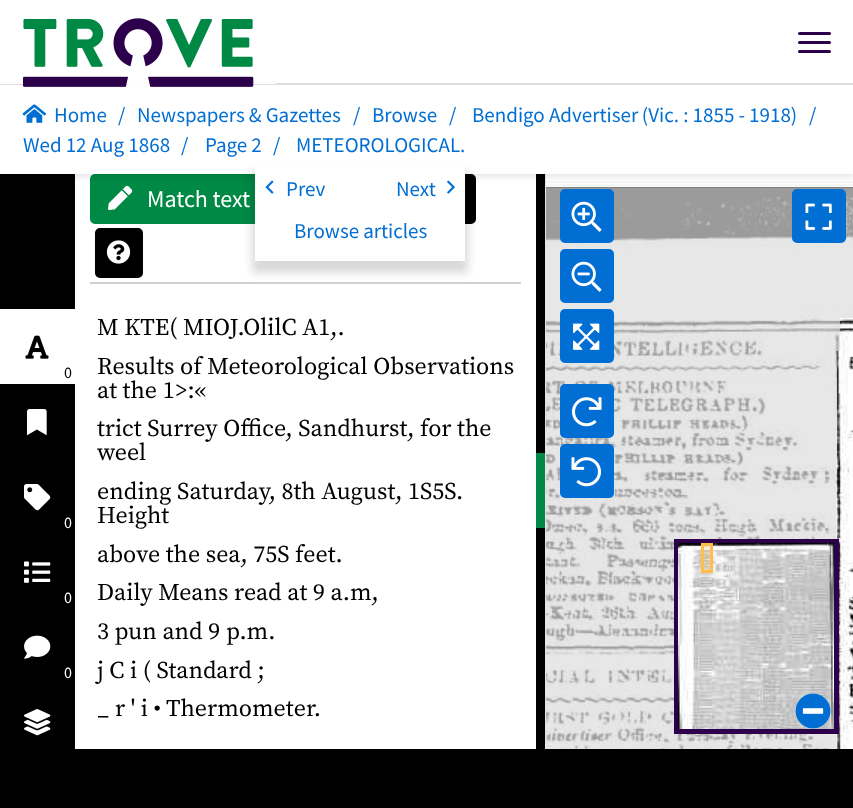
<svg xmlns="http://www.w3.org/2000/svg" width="853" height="808">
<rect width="100%" height="100%" fill="#fff"/>
<rect y="174" width="75" height="575" fill="#000"/>
<path d="M95 175.5h173.5v47h-173.5c-2 0-3.5-1.5-3.5-3.5v-40c0-2 1.5-3.5 3.5-3.5z" fill="#008944" stroke="#008944" stroke-width="3"/>
<image x="108" y="185" width="25" height="25" href="media/11.png"/>
<rect x="429.5" y="175.5" width="45" height="47" rx="3.5" fill="#000" stroke="#000" stroke-width="3"/>
<rect x="536" y="174" width="9" height="575" fill="#000"/>
<rect x="545" y="174" width="1" height="575" fill="#e3e3e3"/>
<image x="546" y="174" width="279" height="87" href="media/13.png"/>
<image x="825" y="174" width="28" height="87" href="media/14.png"/>
<rect y="87" width="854" height="90" fill="#0000001a" filter="blur(3px)"/>
<rect y="83" width="853" height="2" fill="#ddd"/>
<rect y="83" width="276" height="1" fill="#fff"/>
<rect x="23" y="84" width="231" height="1" fill="#fff"/>
<rect y="85" width="853" height="89" fill="#fff"/>
<image x="23" y="18" width="231" height="69" href="media/1.png"/>
<rect x="798" y="32" width="33" height="3" rx="1.5" fill="#2d004b"/>
<rect x="798" y="41" width="33" height="3" rx="1.5" fill="#2d004b"/>
<rect x="798" y="50" width="33" height="3" rx="1.5" fill="#2d004b"/>
<image x="22" y="104" width="25" height="19" href="media/2.png"/>
<text x="54" y="122" style="font-family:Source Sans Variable;font-size:21px;fill:#016ed3">Home</text>
<text x="118" y="122" style="font-family:Source Sans Variable;font-size:21px;fill:#016ed3">/</text>
<text x="137" y="122" style="font-family:Source Sans Variable;font-size:21px;fill:#016ed3">Newspapers &amp; Gazettes</text>
<text x="353" y="122" style="font-family:Source Sans Variable;font-size:21px;fill:#016ed3">/</text>
<text x="372" y="122" style="font-family:Source Sans Variable;font-size:21px;fill:#016ed3">Browse</text>
<text x="449" y="122" style="font-family:Source Sans Variable;font-size:21px;fill:#016ed3">/</text>
<text x="472" y="122" style="font-family:Source Sans Variable;font-size:21px;fill:#016ed3">Bendigo Advertiser (Vic. : 1855 - 1918)</text>
<text x="809" y="122" style="font-family:Source Sans Variable;font-size:21px;fill:#016ed3">/</text>
<text x="23" y="152" style="font-family:Source Sans Variable;font-size:21px;fill:#016ed3">Wed 12 Aug 1868</text>
<text x="181" y="152" style="font-family:Source Sans Variable;font-size:21px;fill:#016ed3">/</text>
<text x="205" y="152" style="font-family:Source Sans Variable;font-size:21px;fill:#016ed3">Page 2</text>
<text x="273" y="152" style="font-family:Source Sans Variable;font-size:21px;fill:#016ed3">/</text>
<text x="296" y="152" style="font-family:Source Sans Variable;font-size:21px;fill:#016ed3">METEOROLOGICAL.</text>
<rect x="90" y="282" width="431" height="2" fill="#d1d1d1"/>
<rect x="252" y="170" width="216" height="103" fill="#00000026" filter="blur(4.5px)"/>
<rect x="255" y="164" width="210" height="97" fill="#fff"/>
<image x="265" y="180" width="9" height="14" href="media/3.png"/>
<text x="286" y="196" style="font-family:Source Sans Variable;font-size:21px;fill:#016ed3">Prev</text>
<text x="396" y="196" style="font-family:Source Sans Variable;font-size:21px;fill:#016ed3">Next</text>
<image x="447" y="180" width="8" height="14" href="media/4.png"/>
<text x="294" y="238" style="font-family:Source Sans Variable;font-size:21px;fill:#016ed3">Browse articles</text>
<rect y="309" width="75" height="75" fill="#fff"/>
<image x="25" y="335" width="24" height="24" href="media/5.png"/>
<text x="64" y="378" style="font-family:Source Sans Variable;font-size:16px;fill:#000">0</text>
<image x="27" y="409" width="20" height="27" href="media/6.png"/>
<image x="24" y="484" width="27" height="27" href="media/7.png"/>
<text x="64" y="528" style="font-family:Source Sans Variable;font-size:16px;fill:#fff">0</text>
<image x="24" y="561" width="27" height="22" href="media/8.png"/>
<text x="64" y="603" style="font-family:Source Sans Variable;font-size:16px;fill:#fff">0</text>
<image x="24" y="635" width="27" height="24" href="media/9.png"/>
<text x="64" y="678" style="font-family:Source Sans Variable;font-size:16px;fill:#fff">0</text>
<image x="24" y="709" width="27" height="27" href="media/10.png"/>
<text x="147" y="207" style="font-family:Source Sans Variable;font-size:24px;fill:#fff">Match text</text>
<rect x="96.5" y="229.5" width="45" height="47" rx="3.5" fill="#000" stroke="#000" stroke-width="3"/>
<image x="106" y="240" width="25" height="24" href="media/12.png"/>
<text x="97" y="335" style="font-family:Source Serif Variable;font-size:24px;fill:#000">M KTE( MIOJ.OlilC A1,.</text>
<text x="97" y="374" style="font-family:Source Serif Variable;font-size:24px;fill:#000">Results of Meteorological Observations</text>
<text x="97" y="398" style="font-family:Source Serif Variable;font-size:24px;fill:#000">at the 1&gt;:«</text>
<text x="97" y="436" style="font-family:Source Serif Variable;font-size:24px;fill:#000">trict Surrey Office, Sandhurst, for the</text>
<text x="97" y="460" style="font-family:Source Serif Variable;font-size:24px;fill:#000">weel</text>
<text x="97" y="499" style="font-family:Source Serif Variable;font-size:24px;fill:#000">ending Saturday, 8th August, 1S5S.</text>
<text x="97" y="523" style="font-family:Source Serif Variable;font-size:24px;fill:#000">Height</text>
<text x="97" y="562" style="font-family:Source Serif Variable;font-size:24px;fill:#000">above the sea, 75S feet.</text>
<text x="97" y="600" style="font-family:Source Serif Variable;font-size:24px;fill:#000">Daily Means read at 9 a.m,</text>
<text x="97" y="639" style="font-family:Source Serif Variable;font-size:24px;fill:#000">3 pun and 9 p.m.</text>
<text x="97" y="678" style="font-family:Source Serif Variable;font-size:24px;fill:#000">j C i ( Standard ;</text>
<text x="97" y="716" style="font-family:Source Serif Variable;font-size:24px;fill:#000">_ r ' i • Thermometer.</text>
<rect x="536" y="453" width="9" height="75" fill="#008944"/>
<image x="546" y="261" width="279" height="384" href="media/15.png"/>
<image x="825" y="261" width="28" height="384" href="media/16.png"/>
<rect x="546" y="188" width="307" height="130" fill="#ddddddb3"/>
<rect x="546" y="318" width="294" height="33" fill="#ddddddb3"/>
<image x="546" y="645" width="279" height="104" href="media/17.png"/>
<image x="825" y="645" width="28" height="104" href="media/18.png"/>
<rect x="546" y="351" width="290" height="398" fill="#ddddddb3"/>
<rect x="561.5" y="190.5" width="51" height="51" rx="3.5" fill="#016ed3" stroke="#016ed3" stroke-width="3"/>
<image x="571" y="201" width="31" height="31" href="media/19.png"/>
<rect x="793.5" y="190.5" width="51" height="51" rx="3.5" fill="#016ed3" stroke="#016ed3" stroke-width="3"/>
<image x="805" y="203" width="27" height="27" href="media/20.png"/>
<rect x="561.5" y="250.5" width="51" height="51" rx="3.5" fill="#016ed3" stroke="#016ed3" stroke-width="3"/>
<image x="571" y="261" width="31" height="31" href="media/21.png"/>
<rect x="561.5" y="310.5" width="51" height="51" rx="3.5" fill="#016ed3" stroke="#016ed3" stroke-width="3"/>
<image x="573" y="323" width="27" height="27" href="media/22.png"/>
<rect x="561.5" y="385.5" width="51" height="51" rx="3.5" fill="#016ed3" stroke="#016ed3" stroke-width="3"/>
<image x="572" y="397" width="30" height="30" href="media/23.png"/>
<rect x="561.5" y="445.5" width="51" height="51" rx="3.5" fill="#016ed3" stroke="#016ed3" stroke-width="3"/>
<image x="571" y="457" width="30" height="30" href="media/24.png"/>
<rect x="676.5" y="541.5" width="160" height="190" fill="none" stroke="#2d004b" stroke-width="5"/>
<image x="678" y="543" width="156" height="186" href="media/25.png"/>
<rect x="702.5" y="544.5" width="9" height="27" fill="#ffbd4c1a" stroke="#ffbd4c" stroke-width="3"/>
<rect x="704" y="546" width="6" height="24" fill="#ffbd4c1a"/>
<path d="M800.5 698.5c12-11.5 31.5-2 30 14.5c-.5 4-2.5 7.5-5 10.5c-12 11.5-31.5 2-30-14.5c.5-4 2.5-7.5 5-10.5z" fill="#fff"/>
<image x="795" y="693" width="36" height="36" href="media/26.png"/>
<rect y="749" width="853" height="59" fill="#000"/>
</svg>
